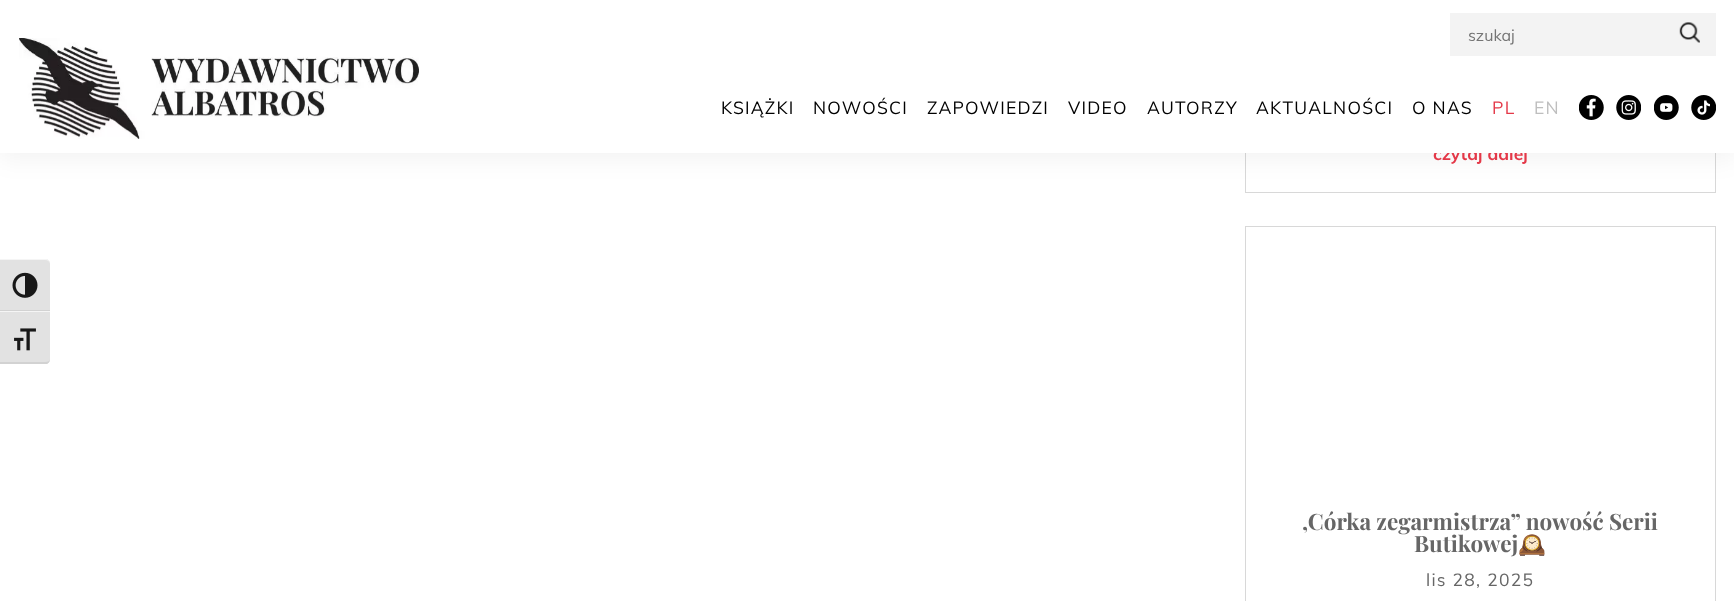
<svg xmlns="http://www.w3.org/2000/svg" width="1734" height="601">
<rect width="100%" height="100%" fill="#fff"/>
<rect x="1245.5" y="-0.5" width="470" height="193" fill="none" stroke="#d8d8d8"/>
<rect y="6" width="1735" height="153" fill="#0000000d" filter="blur(12.5px)"/>
<text x="1433" y="160" style="font-family:Muli;font-size:17.5px;font-weight:bold;fill:#e43848">czytaj dalej</text>
<rect width="1734" height="153" fill="#fff"/>
<image x="19" y="38" width="400" height="101" href="media/1.png"/>
<rect x="1450" y="13" width="266" height="43" fill="#f3f3f3"/>
<text x="1468" y="41" style="font-family:Muli;font-size:16px;fill:#757575">szukaj</text>
<image x="1679" y="22" width="21" height="21" href="media/2.png"/>
<text x="721" y="114" style="font-family:Muli;font-size:17.5px;letter-spacing:1.25px;fill:#000">KSIĄŻKI</text>
<text x="813" y="114" style="font-family:Muli;font-size:17.5px;letter-spacing:1.25px;fill:#000">NOWOŚCI</text>
<text x="927" y="114" style="font-family:Muli;font-size:17.5px;letter-spacing:1.25px;fill:#000">ZAPOWIEDZI</text>
<text x="1068" y="114" style="font-family:Muli;font-size:17.5px;letter-spacing:1.25px;fill:#000">VIDEO</text>
<text x="1147" y="114" style="font-family:Muli;font-size:17.5px;letter-spacing:1.25px;fill:#000">AUTORZY</text>
<text x="1256" y="114" style="font-family:Muli;font-size:17.5px;letter-spacing:1.25px;fill:#000">AKTUALNOŚCI</text>
<text x="1412" y="114" style="font-family:Muli;font-size:17.5px;letter-spacing:1.25px;fill:#000">O NAS</text>
<text x="1492" y="114" style="font-family:Muli;font-size:17.5px;letter-spacing:1.25px;fill:#e43848">PL</text>
<text x="1534" y="114" style="font-family:Muli;font-size:17.5px;letter-spacing:1.25px;fill:#bebebe">EN</text>
<image x="1579" y="95" width="25" height="25" href="media/3.png"/>
<image x="1616" y="95" width="25" height="25" href="media/4.png"/>
<image x="1654" y="95" width="25" height="25" href="media/5.png"/>
<image x="1691" y="95" width="25" height="25" href="media/6.png"/>
<path d="M0 259h45c3 0 5 2 5 5v47h-50z" fill="#e2e2e2"/>
<path d="M0 260h45c3 0 5 2 5 4c0-3-2-5-5-5h-45z" fill="#f5f5f5"/>
<rect y="310" width="50" height="1" fill="#d2d2d2"/>
<image x="12" y="272" width="26" height="26" href="media/7.png"/>
<path d="M0 311h50v48c0 3-2 5-5 5h-45z" fill="#e2e2e2"/>
<rect y="311" width="50" height="1" fill="#f5f5f5"/>
<path d="M47 364c2-1 3-3 3-5c0 2-2 3-5 3h-45v2z" fill="#d2d2d2"/>
<image x="14" y="328" width="22" height="23" href="media/8.png"/>
<rect x="1245.5" y="226.5" width="470" height="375" fill="none" stroke="#d8d8d8"/>
<text x="1302" y="530" style="font-family:Playfair Display;font-size:22.5px;font-weight:bold;fill:#666">,Córka zegarmistrza” nowość Serii</text>
<text x="1414" y="552" style="font-family:Playfair Display;font-size:22.5px;font-weight:bold;fill:#666">Butikowej</text>
<text x="1518" y="552" style="font-family:Noto Color Emoji;font-size:22.5px;font-weight:bold;fill:#666">🕰️</text>
<text x="1426" y="586" style="font-family:Muli;font-size:17.5px;letter-spacing:1.25px;fill:#666">lis 28, 2025</text>
</svg>
